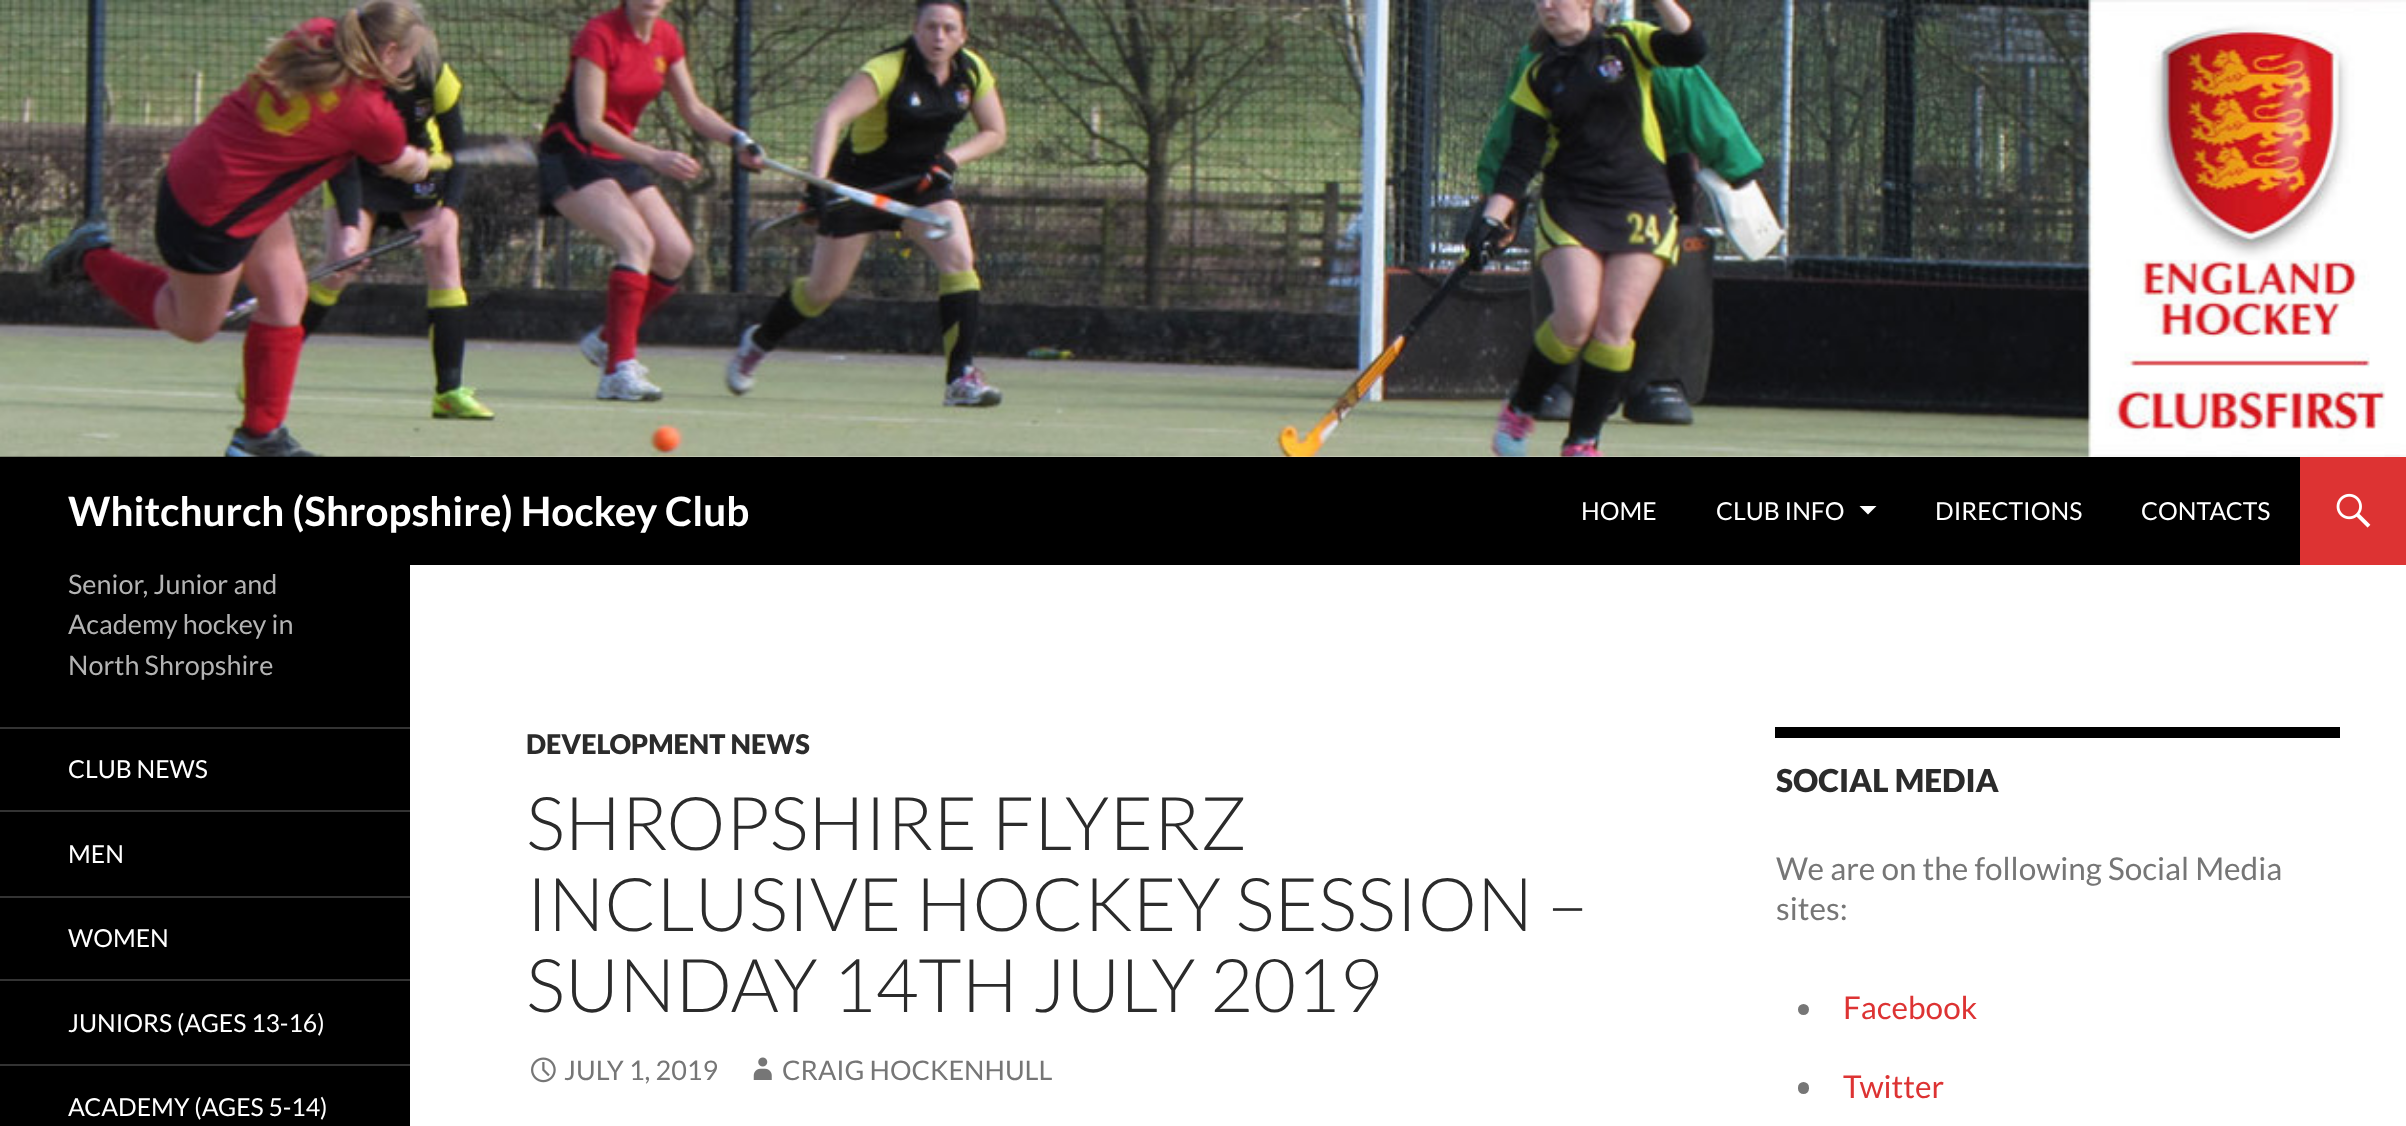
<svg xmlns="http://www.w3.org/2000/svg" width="2406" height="1126">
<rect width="100%" height="100%" fill="#fff"/>
<rect y="456" width="410" height="670" fill="#000"/>
<image x="0" y="0" width="2406" height="457" href="media/1.png"/>
<rect x="410" y="457" width="1890" height="108" fill="#000"/>
<text x="68" y="526" style="font-family:Lato;font-size:40.5px;font-weight:bold;fill:#fff">Whitchurch (Shropshire) Hockey Club</text>
<text x="1581" y="520" style="font-family:Lato;font-size:24.75px;fill:#fff">HOME</text>
<text x="1716" y="520" style="font-family:Lato;font-size:24.75px;fill:#fff">CLUB INFO</text>
<path d="M1859.5 506h17l-8.5 8.5z" fill="#fff"/>
<text x="1935" y="520" style="font-family:Lato;font-size:24.75px;fill:#fff">DIRECTIONS</text>
<text x="2141" y="520" style="font-family:Lato;font-size:24.75px;fill:#fff">CONTACTS</text>
<rect x="2300" y="457" width="106" height="108" fill="#d33"/>
<image x="2336" y="493" width="35" height="35" href="media/2.png"/>
<text x="68" y="594" style="font-family:Lato;font-size:27px;fill:#b3b3b3">Senior, Junior and</text>
<text x="68" y="634" style="font-family:Lato;font-size:27px;fill:#b3b3b3">Academy hockey in</text>
<text x="68" y="675" style="font-family:Lato;font-size:27px;fill:#b3b3b3">North Shropshire</text>
<rect y="727" width="410" height="2" fill="#333"/>
<text x="68" y="778" style="font-family:Lato;font-size:24.75px;fill:#fff">CLUB NEWS</text>
<rect y="810" width="410" height="2" fill="#333"/>
<text x="68" y="863" style="font-family:Lato;font-size:24.75px;fill:#fff">MEN</text>
<rect y="896" width="410" height="2" fill="#333"/>
<text x="68" y="947" style="font-family:Lato;font-size:24.75px;fill:#fff">WOMEN</text>
<rect y="979" width="410" height="2" fill="#333"/>
<text x="68" y="1032" style="font-family:Lato;font-size:24.75px;fill:#fff">JUNIORS (AGES 13-16)</text>
<rect y="1064" width="410" height="2" fill="#333"/>
<text x="68" y="1116" style="font-family:Lato;font-size:24.75px;fill:#fff">ACADEMY (AGES 5-14)</text>
<text x="526" y="754" style="font-family:Lato;font-size:27px;font-weight:900;fill:#2b2b2b">DEVELOPMENT NEWS</text>
<text x="526" y="850" style="font-family:Lato;font-size:74.25px;font-weight:300;fill:#2b2b2b">SHROPSHIRE FLYERZ</text>
<text x="526" y="931" style="font-family:Lato;font-size:74.25px;font-weight:300;fill:#2b2b2b">INCLUSIVE HOCKEY SESSION –</text>
<text x="526" y="1012" style="font-family:Lato;font-size:74.25px;font-weight:300;fill:#2b2b2b">SUNDAY 14TH JULY 2019</text>
<image x="531" y="1057" width="25" height="26" href="media/3.png"/>
<text x="564" y="1080" style="font-family:Lato;font-size:27px;fill:#767676">JULY 1, 2019</text>
<image x="753" y="1057" width="19" height="23" href="media/4.png"/>
<text x="782" y="1080" style="font-family:Lato;font-size:27px;fill:#767676">CRAIG HOCKENHULL</text>
<rect x="1775" y="727" width="565" height="11" fill="#000"/>
<text x="1776" y="792" style="font-family:Lato;font-size:31.5px;font-weight:900;fill:#2b2b2b">SOCIAL MEDIA</text>
<text x="1776" y="880" style="font-family:Lato;font-size:31.5px;fill:#767676">We are on the following Social Media</text>
<text x="1776" y="920" style="font-family:Lato;font-size:31.5px;fill:#767676">sites:</text>
<circle cx="1803.5" cy="1009.5" r="5.5" fill="#767676"/>
<text x="1843" y="1019" style="font-family:Lato;font-size:31.5px;fill:#d33">Facebook</text>
<rect x="1798" y="1082" width="11" height="12" rx="5.5" fill="#767676"/>
<text x="1843" y="1098" style="font-family:Lato;font-size:31.5px;fill:#d33">Twitter</text>
</svg>
